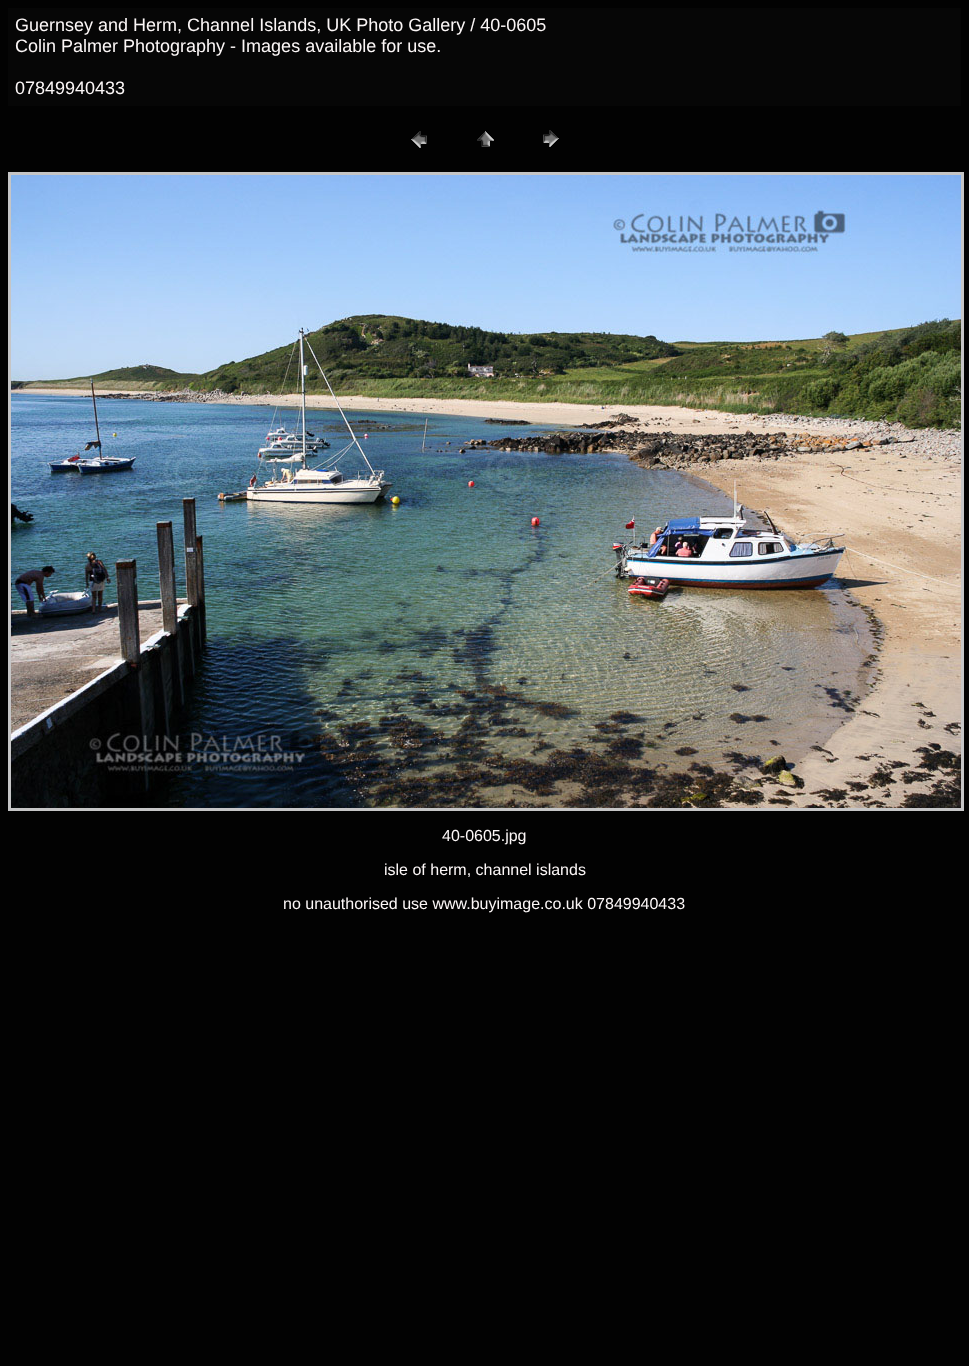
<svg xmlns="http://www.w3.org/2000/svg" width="969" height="1366">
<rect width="100%" height="100%" fill="#020202"/>
<rect x="8" y="8" width="953" height="98" fill="#060606"/>
<text x="15" y="31" style="font-family:Liberation Sans;font-size:18px;fill:#fcf7f7">Guernsey and Herm, Channel Islands, UK Photo Gallery / 40-0605</text>
<text x="15" y="52" style="font-family:Liberation Sans;font-size:18px;fill:#fcf7f7">Colin Palmer Photography - Images available for use.</text>
<text x="15" y="94" style="font-family:Liberation Sans;font-size:18px;fill:#fcf7f7">07849940433</text>
<image x="411" y="131" width="16" height="17" href="media/1.png"/>
<image x="477" y="131" width="17" height="16" href="media/2.png"/>
<image x="543" y="130" width="16" height="17" href="media/3.png"/>
<rect x="9.5" y="173.5" width="953" height="636" fill="none" stroke="#c5c5c6" stroke-width="3"/>
<image x="11" y="175" width="950" height="633" href="media/4.png"/>
<text x="442" y="841" style="font-family:Liberation Sans;font-size:16px;fill:#fcf7f7">40-0605.jpg</text>
<text x="384" y="875" style="font-family:Liberation Sans;font-size:16px;fill:#fcf7f7">isle of herm, channel islands</text>
<text x="283" y="909" style="font-family:Liberation Sans;font-size:16px;fill:#fcf7f7">no unauthorised use www.buyimage.co.uk 07849940433</text>
</svg>
